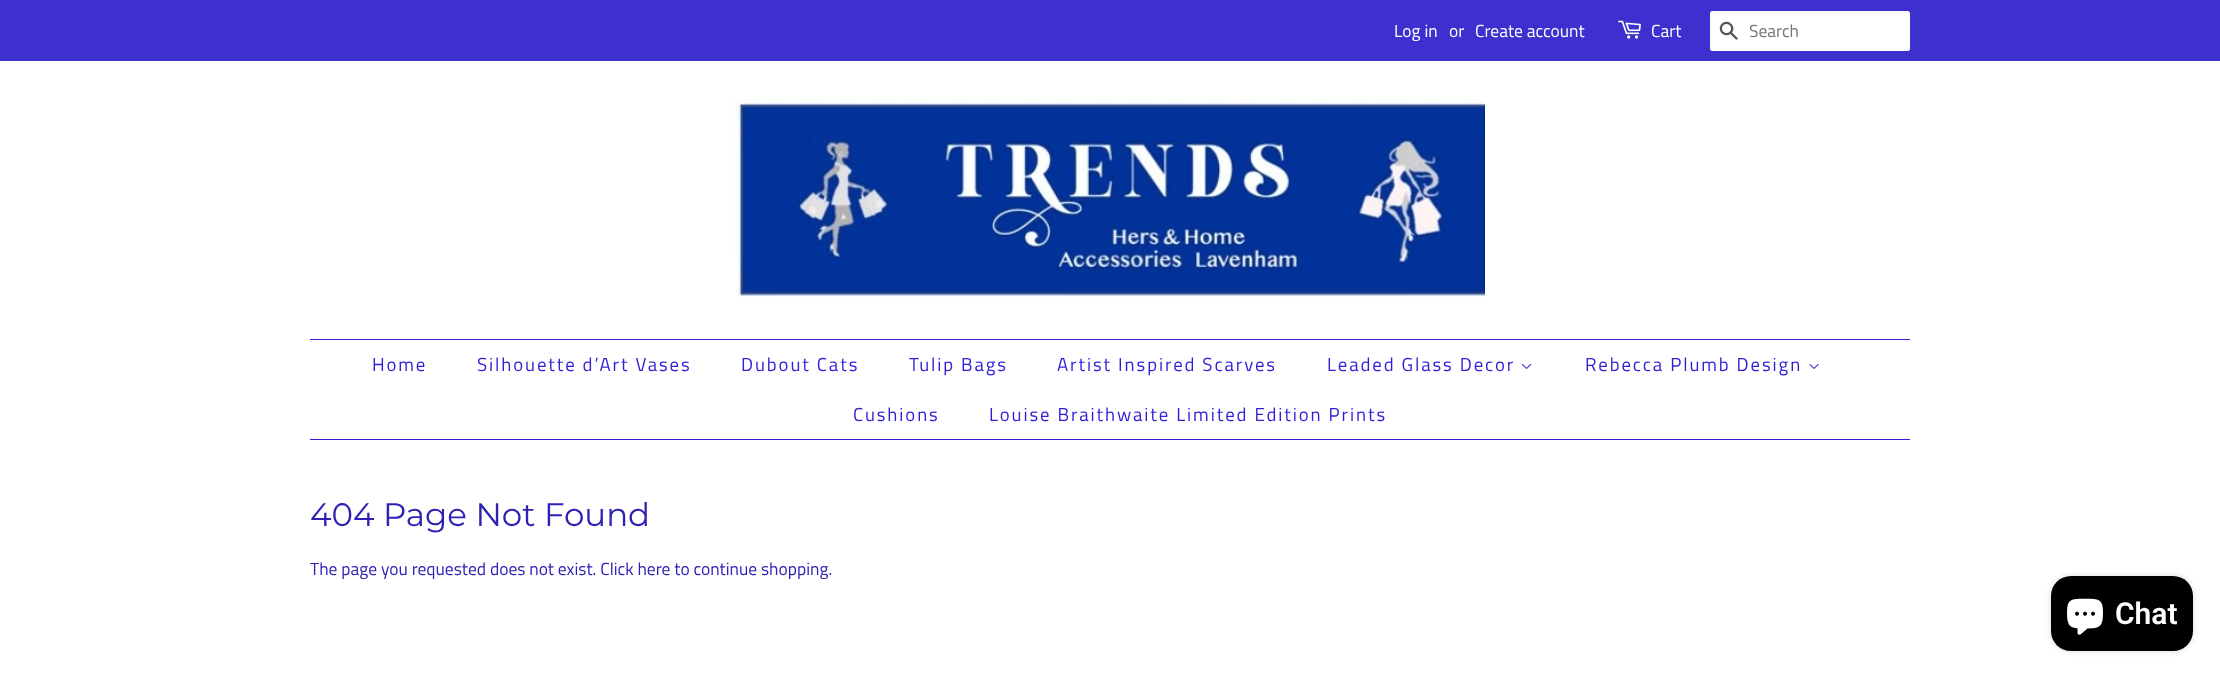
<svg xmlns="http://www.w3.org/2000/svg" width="2220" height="677">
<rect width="100%" height="100%" fill="#fff"/>
<rect width="2220" height="61" fill="#3e2fcf"/>
<text x="1394" y="37" style="font-family:Titillium Web;font-size:17.5px;fill:#fff">Log in</text>
<text x="1449" y="37" style="font-family:Titillium Web;font-size:17.5px;fill:#fff">or</text>
<text x="1475" y="37" style="font-family:Titillium Web;font-size:17.5px;fill:#fff">Create account</text>
<image x="1618" y="20" width="23" height="19" href="media/1.png"/>
<text x="1651" y="37" style="font-family:Titillium Web;font-size:17.5px;fill:#fff">Cart</text>
<rect x="1710" y="11" width="200" height="40" rx="2.5" fill="#fff"/>
<image x="1719" y="21" width="19" height="19" href="media/2.png"/>
<text x="1749" y="37" style="font-family:Titillium Web;font-size:17.5px;fill:#757575">Search</text>
<image x="735" y="99" width="750" height="199" href="media/3.png"/>
<rect x="310" y="339" width="1600" height="1" fill="#2f1fd6"/>
<rect x="310" y="439" width="1600" height="1" fill="#2f1fd6"/>
<text x="372" y="371" style="font-family:Titillium Web;font-size:18.75px;letter-spacing:1.9px;fill:#2f1fd6">Home</text>
<text x="477" y="371" style="font-family:Titillium Web;font-size:18.75px;letter-spacing:1.9px;fill:#2f1fd6">Silhouette d’Art Vases</text>
<text x="741" y="371" style="font-family:Titillium Web;font-size:18.75px;letter-spacing:1.9px;fill:#2f1fd6">Dubout Cats</text>
<text x="909" y="371" style="font-family:Titillium Web;font-size:18.75px;letter-spacing:1.9px;fill:#2f1fd6">Tulip Bags</text>
<text x="1057" y="371" style="font-family:Titillium Web;font-size:18.75px;letter-spacing:1.9px;fill:#2f1fd6">Artist Inspired Scarves</text>
<text x="1327" y="371" style="font-family:Titillium Web;font-size:18.75px;letter-spacing:1.9px;fill:#2f1fd6">Leaded Glass Decor</text>
<image x="1521" y="363" width="11" height="6" href="media/4.png"/>
<text x="1585" y="371" style="font-family:Titillium Web;font-size:18.75px;letter-spacing:1.9px;fill:#2f1fd6">Rebecca Plumb Design</text>
<image x="1809" y="363" width="10" height="6" href="media/5.png"/>
<text x="853" y="421" style="font-family:Titillium Web;font-size:18.75px;letter-spacing:1.9px;fill:#2f1fd6">Cushions</text>
<text x="989" y="421" style="font-family:Titillium Web;font-size:18.75px;letter-spacing:1.9px;fill:#2f1fd6">Louise Braithwaite Limited Edition Prints</text>
<text x="310" y="526" style="font-family:Montserrat;font-size:32.5px;fill:#2e21b4">404 Page Not Found</text>
<text x="310" y="575" style="font-family:Titillium Web;font-size:17.5px;fill:#2e21b4">The page you requested does not exist. Click here to continue shopping.</text>
<rect x="2051" y="576" width="142" height="75" rx="20" fill="#00000026" filter="blur(3px)"/>
<rect x="2051" y="576" width="142" height="75" rx="20" fill="#000"/>
<image x="2067" y="598" width="36" height="37" href="media/6.png"/>
<text x="2115" y="624" style="font-family:Roboto;font-size:30px;font-weight:600;fill:#fff">Chat</text>
</svg>
